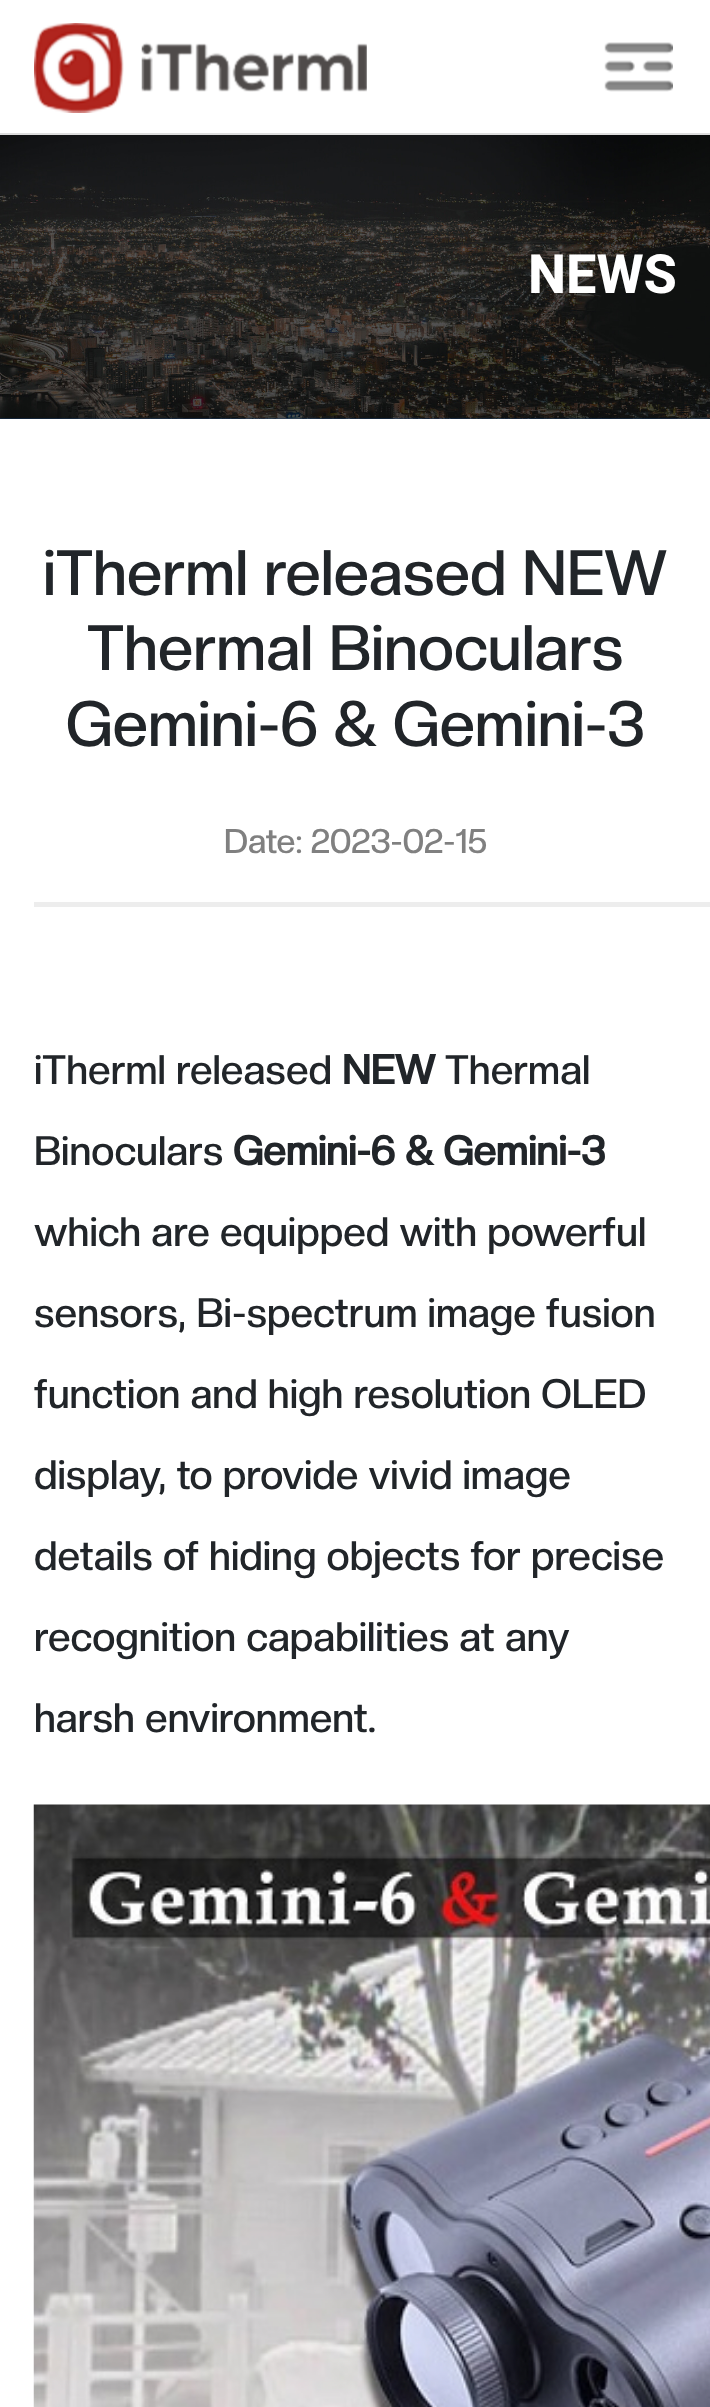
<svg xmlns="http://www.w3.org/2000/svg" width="710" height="2407">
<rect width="100%" height="100%" fill="#fff"/>
<rect y="133" width="710" height="2" fill="#ddd"/>
<image x="34" y="23" width="90" height="90" href="media/1.png"/>
<image x="141" y="42" width="226" height="50" href="media/2.png"/>
<image x="604" y="42" width="69" height="50" href="media/3.png"/>
<rect y="418" width="710" height="1" fill="#16365e"/>
<image x="0" y="135" width="710" height="284" href="media/4.png"/>
<text x="528" y="293" style="font-family:Heebo;font-size:54px;font-weight:bold;fill:#fff">NEWS</text>
<text x="43" y="595" style="font-family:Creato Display;font-size:63px;font-weight:500;fill:#212529">iTherml released NEW</text>
<text x="87" y="670" style="font-family:Creato Display;font-size:63px;font-weight:500;fill:#212529">Thermal Binoculars</text>
<text x="66" y="746" style="font-family:Creato Display;font-size:63px;font-weight:500;fill:#212529">Gemini-6 &amp; Gemini-3</text>
<text x="224" y="853" style="font-family:Creato Display;font-size:33.75px;font-weight:500;fill:#808080">Date: 2023-02-15</text>
<rect x="34" y="902" width="676" height="5" fill="#ededed"/>
<text x="34" y="1084" style="font-family:Creato Display;font-size:40.5px;font-weight:500;fill:#212529">iTherml released</text>
<text x="342" y="1084" style="font-family:Creato Display;font-size:40.5px;font-weight:bold;fill:#212529">NEW</text>
<text x="445" y="1084" style="font-family:Creato Display;font-size:40.5px;font-weight:500;fill:#212529">Thermal</text>
<text x="34" y="1165" style="font-family:Creato Display;font-size:40.5px;font-weight:500;fill:#212529">Binoculars</text>
<text x="233" y="1165" style="font-family:Creato Display;font-size:40.5px;font-weight:bold;fill:#212529">Gemini-6 &amp; Gemini-3</text>
<text x="34" y="1246" style="font-family:Creato Display;font-size:40.5px;font-weight:500;fill:#212529">which are equipped with powerful</text>
<text x="34" y="1327" style="font-family:Creato Display;font-size:40.5px;font-weight:500;fill:#212529">sensors, Bi-spectrum image fusion</text>
<text x="34" y="1408" style="font-family:Creato Display;font-size:40.5px;font-weight:500;fill:#212529">function and high resolution OLED</text>
<text x="34" y="1489" style="font-family:Creato Display;font-size:40.5px;font-weight:500;fill:#212529">display, to provide vivid image</text>
<text x="34" y="1570" style="font-family:Creato Display;font-size:40.5px;font-weight:500;fill:#212529">details of hiding objects for precise</text>
<text x="34" y="1651" style="font-family:Creato Display;font-size:40.5px;font-weight:500;fill:#212529">recognition capabilities at any</text>
<text x="34" y="1732" style="font-family:Creato Display;font-size:40.5px;font-weight:500;fill:#212529">harsh environment.</text>
<image x="33" y="1804" width="677" height="603" href="media/5.png"/>
</svg>
